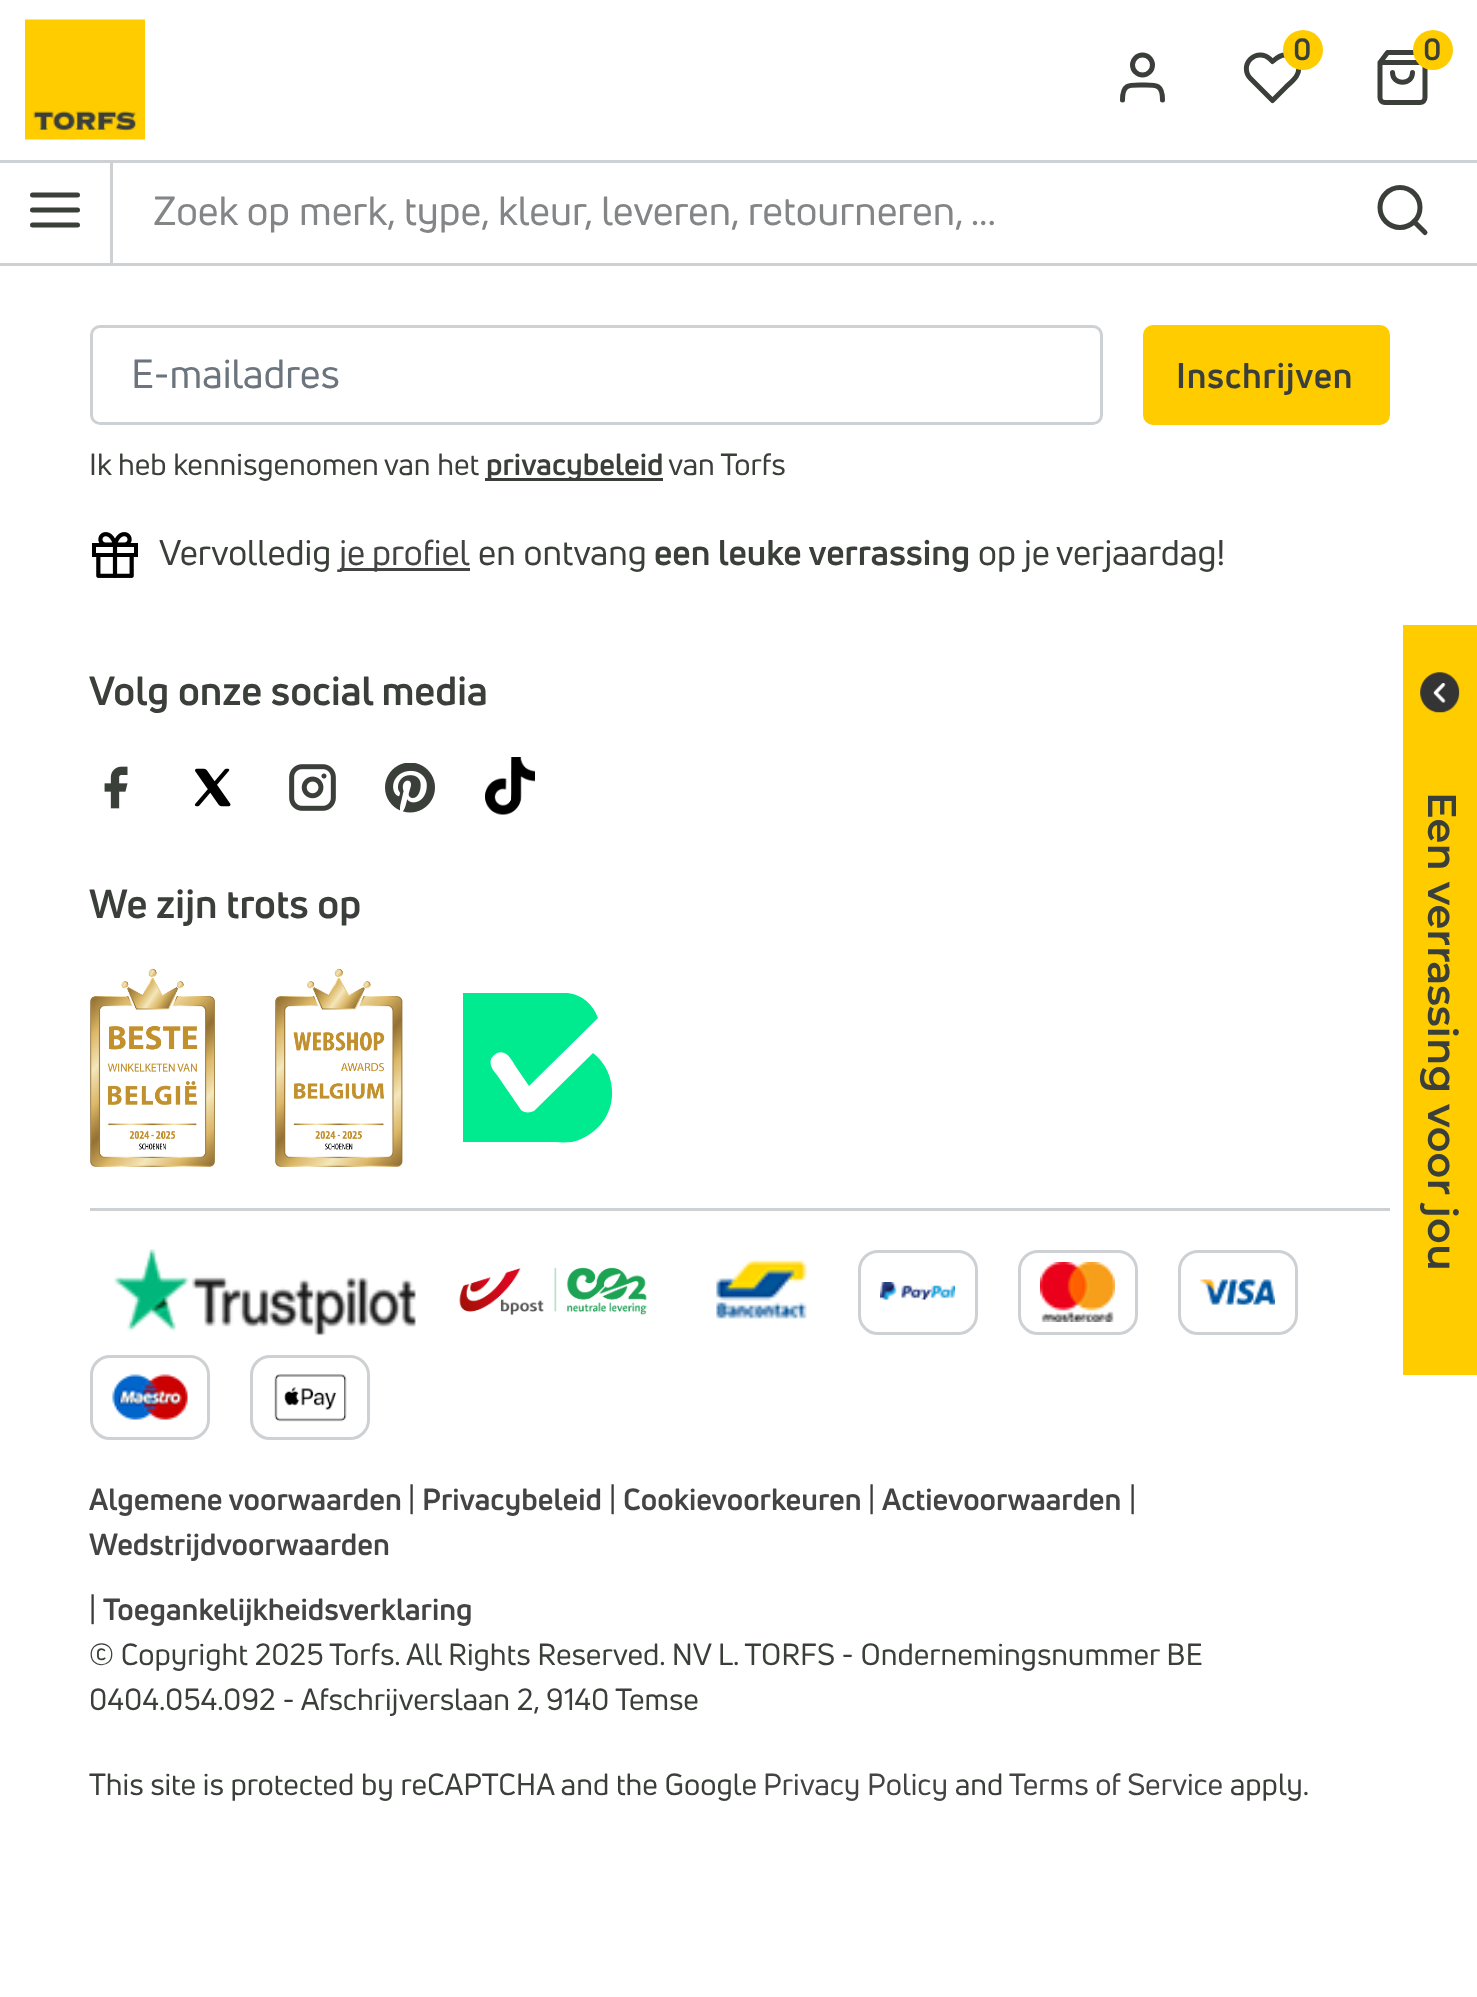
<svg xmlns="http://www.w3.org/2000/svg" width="1477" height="1997">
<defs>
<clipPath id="clip1"><rect x="463" y="993" width="150" height="150"/></clipPath>
</defs>
<rect width="100%" height="100%" fill="#fff"/>
<image x="25" y="19" width="120" height="121" href="media/1.png"/>
<path d="M1294.5 59c-7.5-7.5-15.5-3.5-22 2.5l-2.5-2.5c-5.5-5.5-14-5.5-19.5 0c-5.5 5.5-5.5 14 0 19.5l22 22l13-13c6-6 15-12 13-21.5c-.5-2.5-2-5-4-7z" fill="none" stroke="#3b3f3a" stroke-width="5" stroke-linecap="round" stroke-linejoin="round"/>
<circle cx="1303" cy="50" r="20" fill="#fc0"/>
<text x="1293" y="60" style="font-family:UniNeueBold;font-size:30px;fill:#3b3f3a">0</text>
<path d="M1387.5 52.5l-7.5 10v35c0 3 2 5 5 5h35c3 0 5-2 5-5v-35l-7.5-10zm-7.5 10h45m-12.5 10c0 13-20 13-20 0" fill="none" stroke="#3b3f3a" stroke-width="5" stroke-linecap="round" stroke-linejoin="round"/>
<circle cx="1433" cy="50" r="20" fill="#fc0"/>
<text x="1423" y="60" style="font-family:UniNeueBold;font-size:30px;fill:#3b3f3a">0</text>
<path d="M1162.5 100c0-16-6-15-20-15c-14 0-20-1-20 15" fill="none" stroke="#3b3f3a" stroke-width="5" stroke-linecap="round" stroke-linejoin="round"/>
<circle cx="1142.5" cy="65" r="10" fill="none" stroke="#3b3f3a" stroke-width="5"/>
<rect y="160" width="1477" height="3" fill="#cdd1d4"/>
<rect y="263" width="1477" height="3" fill="#cdd1d4"/>
<path d="M32.5 210h45m-45-15h45m-45 30h45" fill="none" stroke="#3b3f3a" stroke-width="5" stroke-linecap="round" stroke-linejoin="round"/>
<rect x="110" y="163" width="3" height="100" fill="#cdd1d4"/>
<text x="153" y="225" style="font-family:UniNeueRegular;font-size:40px;fill:#838587">Zoek op merk, type, kleur, leveren, retourneren, ...</text>
<circle cx="1400" cy="207.5" r="20" fill="none" stroke="#3b3f3a" stroke-width="5"/>
<path d="M1425 232.5l-11-11" fill="none" stroke="#3b3f3a" stroke-width="5" stroke-linecap="round" stroke-linejoin="round"/>
<rect x="91.5" y="326.5" width="1010" height="97" rx="8.5" fill="none" stroke="#cdd1d4" stroke-width="3"/>
<text x="131" y="388" style="font-family:UniNeueRegular;font-size:40px;fill:#6c757d">E-mailadres</text>
<rect x="1145.5" y="327.5" width="242" height="95" rx="7.5" fill="#fc0" stroke="#fc0" stroke-width="5"/>
<text x="1176" y="388" style="font-family:UniNeueBold;font-size:35px;letter-spacing:0.75px;fill:#3b3f3a">Inschrijven</text>
<text x="89" y="475" style="font-family:UniNeueRegular;font-size:30px;fill:#3b3f3a">Ik heb kennisgenomen van het</text>
<rect x="485" y="478" width="178" height="3" fill="#3b3f3a"/>
<text x="486" y="475" style="font-family:UniNeueBold;font-size:30px;fill:#3b3f3a">privacybeleid</text>
<text x="668" y="475" style="font-family:UniNeueRegular;font-size:30px;fill:#3b3f3a">van Torfs</text>
<image x="92" y="532" width="46" height="46" href="media/2.png"/>
<text x="159" y="565" style="font-family:UniNeueRegular;font-size:35px;fill:#3b3f3a">Vervolledig</text>
<rect x="340" y="568" width="130" height="3" fill="#444"/>
<text x="339" y="565" word-spacing="-1" style="font-family:UniNeueRegular;font-size:35px;fill:#444">je profiel</text>
<text x="478" y="565" style="font-family:UniNeueRegular;font-size:35px;fill:#3b3f3a">en ontvang</text>
<text x="654" y="565" style="font-family:UniNeueBold;font-size:35px;fill:#3b3f3a">een leuke verrassing</text>
<text x="978" y="565" style="font-family:UniNeueRegular;font-size:35px;fill:#3b3f3a">op je verjaardag!</text>
<text x="89" y="705" style="font-family:UniNeueBold;font-size:40px;fill:#3b3f3a">Volg onze social media</text>
<image x="104" y="766" width="24" height="43" href="media/3.png"/>
<image x="194" y="768" width="37" height="39" href="media/4.png"/>
<image x="289" y="764" width="47" height="47" href="media/5.png"/>
<image x="385" y="763" width="50" height="50" href="media/6.png"/>
<image x="485" y="757" width="50" height="58" href="media/7.png"/>
<text x="89" y="918" style="font-family:UniNeueBold;font-size:40px;fill:#3b3f3a">We zijn trots op</text>
<image x="90" y="968" width="125" height="199" href="media/8.png"/>
<image x="275" y="968" width="128" height="199" href="media/9.png"/>
<g clip-path="url(#clip1)">
<path d="M593 1053l-59 58c-4 2-10 2-13-1l-24-35c-3-4-8-9-6-16c1-2 3-4 6-6c10-4 15 8 19 14l13 19l69-68c-5-14-16-23-30-25l-106-1v150h84c8 0 18 1 26 0c22-5 39-24 40-46c1-17-6-33-19-43" fill="#00eb8f"/>
</g>
<rect x="90" y="1208" width="1300" height="3" fill="#cdd1d4"/>
<image x="114" y="1249" width="302" height="87" href="media/10.png"/>
<image x="459" y="1267" width="188" height="48" href="media/11.png"/>
<image x="716" y="1260" width="91" height="59" href="media/12.png"/>
<rect x="859.5" y="1251.5" width="117" height="82" rx="18.5" fill="none" stroke="#cdd1d4" stroke-width="3"/>
<image x="880" y="1282" width="75" height="18" href="media/13.png"/>
<rect x="1019.5" y="1251.5" width="117" height="82" rx="18.5" fill="none" stroke="#cdd1d4" stroke-width="3"/>
<image x="1040" y="1262" width="75" height="60" href="media/14.png"/>
<rect x="1179.5" y="1251.5" width="117" height="82" rx="18.5" fill="none" stroke="#cdd1d4" stroke-width="3"/>
<image x="1200" y="1279" width="75" height="26" href="media/15.png"/>
<rect x="91.5" y="1356.5" width="117" height="82" rx="18.5" fill="none" stroke="#cdd1d4" stroke-width="3"/>
<image x="112" y="1374" width="76" height="46" href="media/16.png"/>
<rect x="251.5" y="1356.5" width="117" height="82" rx="18.5" fill="none" stroke="#cdd1d4" stroke-width="3"/>
<image x="274" y="1374" width="73" height="48" href="media/17.png"/>
<text x="89" y="1510" style="font-family:UniNeueBold;font-size:30px;fill:#444">Algemene voorwaarden</text>
<text x="408" y="1510" style="font-family:UniNeueRegular;font-size:30px;fill:#3b3f3a">|</text>
<text x="422" y="1510" style="font-family:UniNeueBold;font-size:30px;fill:#444">Privacybeleid</text>
<text x="609" y="1510" style="font-family:UniNeueRegular;font-size:30px;fill:#3b3f3a">|</text>
<text x="623" y="1510" style="font-family:UniNeueBold;font-size:30px;fill:#444">Cookievoorkeuren</text>
<text x="868" y="1510" style="font-family:UniNeueRegular;font-size:30px;fill:#3b3f3a">|</text>
<text x="882" y="1510" style="font-family:UniNeueBold;font-size:30px;fill:#444">Actievoorwaarden</text>
<text x="1129" y="1510" style="font-family:UniNeueRegular;font-size:30px;fill:#3b3f3a">|</text>
<text x="89" y="1555" style="font-family:UniNeueBold;font-size:30px;fill:#444">Wedstrijdvoorwaarden</text>
<text x="89" y="1620" style="font-family:UniNeueRegular;font-size:30px;fill:#3b3f3a">|</text>
<text x="103" y="1620" style="font-family:UniNeueBold;font-size:30px;fill:#444">Toegankelijkheidsverklaring</text>
<text x="89" y="1665" style="font-family:UniNeueRegular;font-size:30px;fill:#3b3f3a">© Copyright 2025 Torfs. All Rights Reserved. NV L. TORFS - Ondernemingsnummer BE</text>
<text x="89" y="1710" style="font-family:UniNeueRegular;font-size:30px;fill:#3b3f3a">0404.054.092 - Afschrijverslaan 2, 9140 Temse</text>
<text x="89" y="1795" style="font-family:UniNeueRegular;font-size:30px;fill:#3b3f3a">This site is protected by reCAPTCHA and the Google</text>
<text x="763" y="1795" style="font-family:UniNeueRegular;font-size:30px;fill:#444">Privacy Policy</text>
<text x="955" y="1795" style="font-family:UniNeueRegular;font-size:30px;fill:#3b3f3a">and</text>
<text x="1009" y="1795" style="font-family:UniNeueRegular;font-size:30px;fill:#444">Terms of Service</text>
<text x="1230" y="1795" style="font-family:UniNeueRegular;font-size:30px;fill:#3b3f3a">apply.</text>
<rect x="1403" y="625" width="74" height="750" fill="#fc0"/>
<image x="1420" y="672" width="40" height="41" href="media/18.png"/>
<text x="1428" y="792" transform="rotate(90 1428 792)" style="font-family:Montserrat;font-size:40px;font-weight:600;fill:#3b3f3a">Een verrassing voor jou</text>
</svg>
